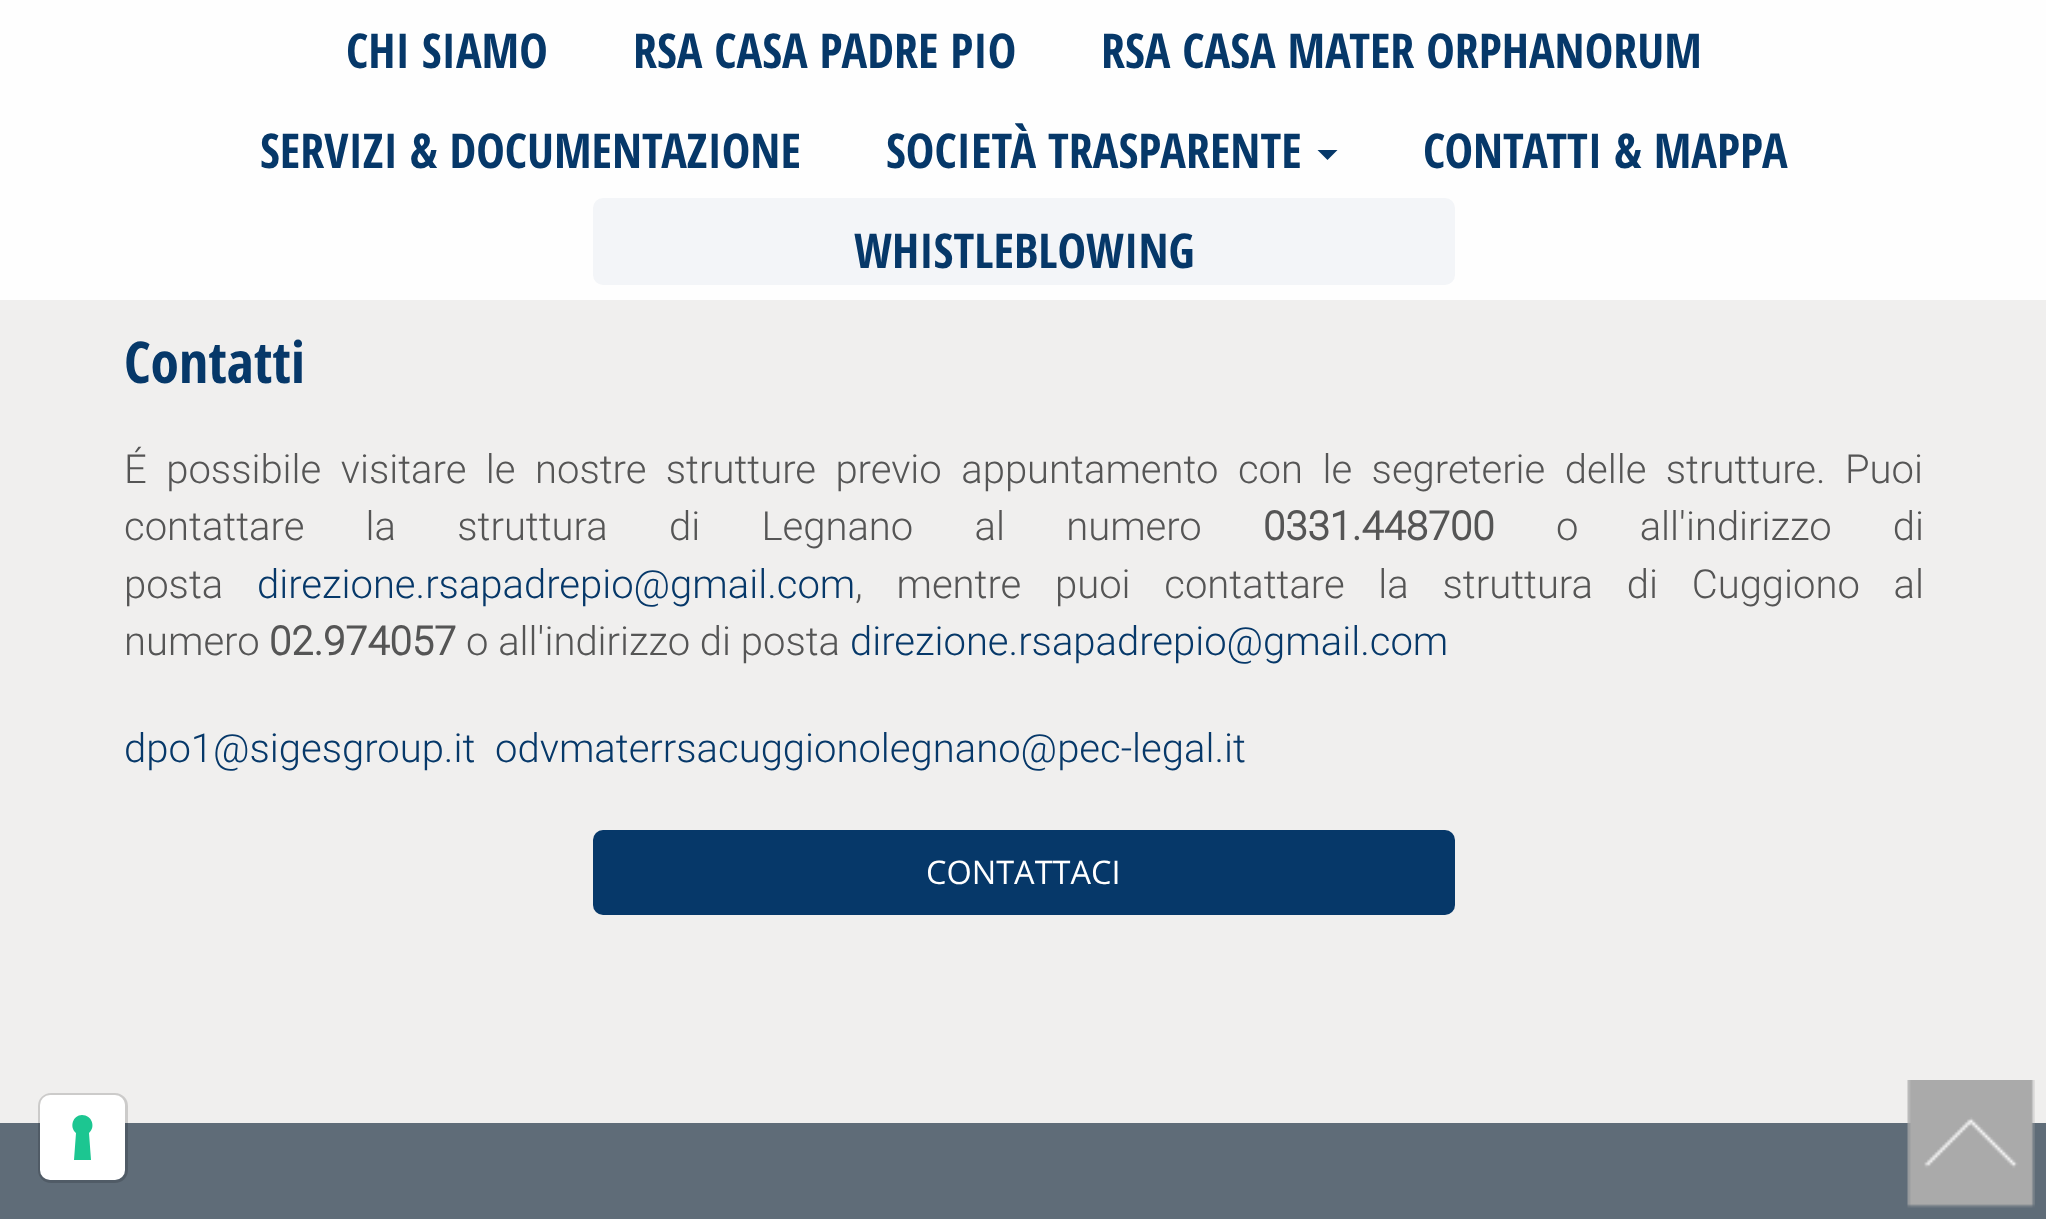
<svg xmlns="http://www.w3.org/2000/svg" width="2046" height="1219">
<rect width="100%" height="100%" fill="#f0efee"/>
<rect width="2046" height="300" fill="#fefefe"/>
<text x="346" y="68" style="font-family:Open Sans Condensed;font-size:48px;font-weight:bold;fill:#063869">CHI SIAMO</text>
<text x="633" y="68" style="font-family:Open Sans Condensed;font-size:48px;font-weight:bold;fill:#063869">RSA CASA PADRE PIO</text>
<text x="1101" y="68" style="font-family:Open Sans Condensed;font-size:48px;font-weight:bold;fill:#063869">RSA CASA MATER ORPHANORUM</text>
<text x="260" y="168" style="font-family:Open Sans Condensed;font-size:48px;font-weight:bold;fill:#063869">SERVIZI &amp; DOCUMENTAZIONE</text>
<text x="886" y="168" style="font-family:Open Sans Condensed;font-size:48px;font-weight:bold;fill:#063869">SOCIETÀ TRASPARENTE</text>
<path d="M1317.5 150h20l-10 10z" fill="#063869"/>
<text x="1423" y="168" style="font-family:Open Sans Condensed;font-size:48px;font-weight:bold;fill:#063869">CONTATTI &amp; MAPPA</text>
<rect x="593" y="198" width="862" height="87" rx="10" fill="#f3f5f8"/>
<text x="854" y="268" style="font-family:Open Sans Condensed;font-size:48px;font-weight:bold;fill:#063869">WHISTLEBLOWING</text>
<text x="124" y="383" style="font-family:Open Sans Condensed;font-size:57.5px;font-weight:bold;fill:#063869">Contatti</text>
<text x="124" y="483" word-spacing="9.75" style="font-family:Roboto;font-size:40px;font-weight:300;fill:#555">É possibile visitare le nostre strutture previo appuntamento con le segreterie delle strutture. Puoi</text>
<text x="124" y="540" word-spacing="51.5" style="font-family:Roboto;font-size:40px;font-weight:300;fill:#555">contattare la struttura di Legnano al numero</text>
<text x="1263" y="540" style="font-family:Roboto;font-size:40px;font-weight:bold;fill:#555">0331.448700</text>
<text x="1556" y="540" word-spacing="51.5" style="font-family:Roboto;font-size:40px;font-weight:300;fill:#555">o all'indirizzo di</text>
<text x="124" y="598" style="font-family:Roboto;font-size:40px;font-weight:300;fill:#555">posta</text>
<text x="257" y="598" style="font-family:Roboto;font-size:40px;font-weight:300;fill:#063869">direzione.rsapadrepio@gmail.com</text>
<text x="855" y="598" word-spacing="24" style="font-family:Roboto;font-size:40px;font-weight:300;fill:#555">, mentre puoi contattare la struttura di Cuggiono al</text>
<text x="124" y="655" style="font-family:Roboto;font-size:40px;font-weight:300;fill:#555">numero</text>
<text x="269" y="655" style="font-family:Roboto;font-size:40px;font-weight:bold;fill:#555">02.974057</text>
<text x="466" y="655" style="font-family:Roboto;font-size:40px;font-weight:300;fill:#555">o all'indirizzo di posta</text>
<text x="850" y="655" style="font-family:Roboto;font-size:40px;font-weight:300;fill:#063869">direzione.rsapadrepio@gmail.com</text>
<text x="124" y="762" style="font-family:Roboto;font-size:40px;font-weight:300;fill:#063869">dpo1@sigesgroup.it</text>
<text x="495" y="762" style="font-family:Roboto;font-size:40px;font-weight:300;fill:#063869">odvmaterrsacuggionolegnano@pec-legal.it</text>
<rect x="593" y="830" width="862" height="85" rx="10" fill="#063869"/>
<text x="926" y="884" style="font-family:Open Sans;font-size:32.5px;fill:#fff">CONTATTACI</text>
<rect y="1123" width="2046" height="96" fill="#5f6c78"/>
<rect x="39.5" y="1094.5" width="87" height="87" rx="11.5" fill="none" stroke="#00000026" stroke-width="3"/>
<rect x="40" y="1095" width="85" height="85" rx="10" fill="#fff"/>
<path d="M82 1115c10 0 14 12 7 18l2 27h-17l2-27c-7-6-3-18 6-18z" fill="#1cc691" fill-rule="evenodd"/>
<image x="1907" y="1080" width="128" height="128" href="media/1.png"/>
</svg>
